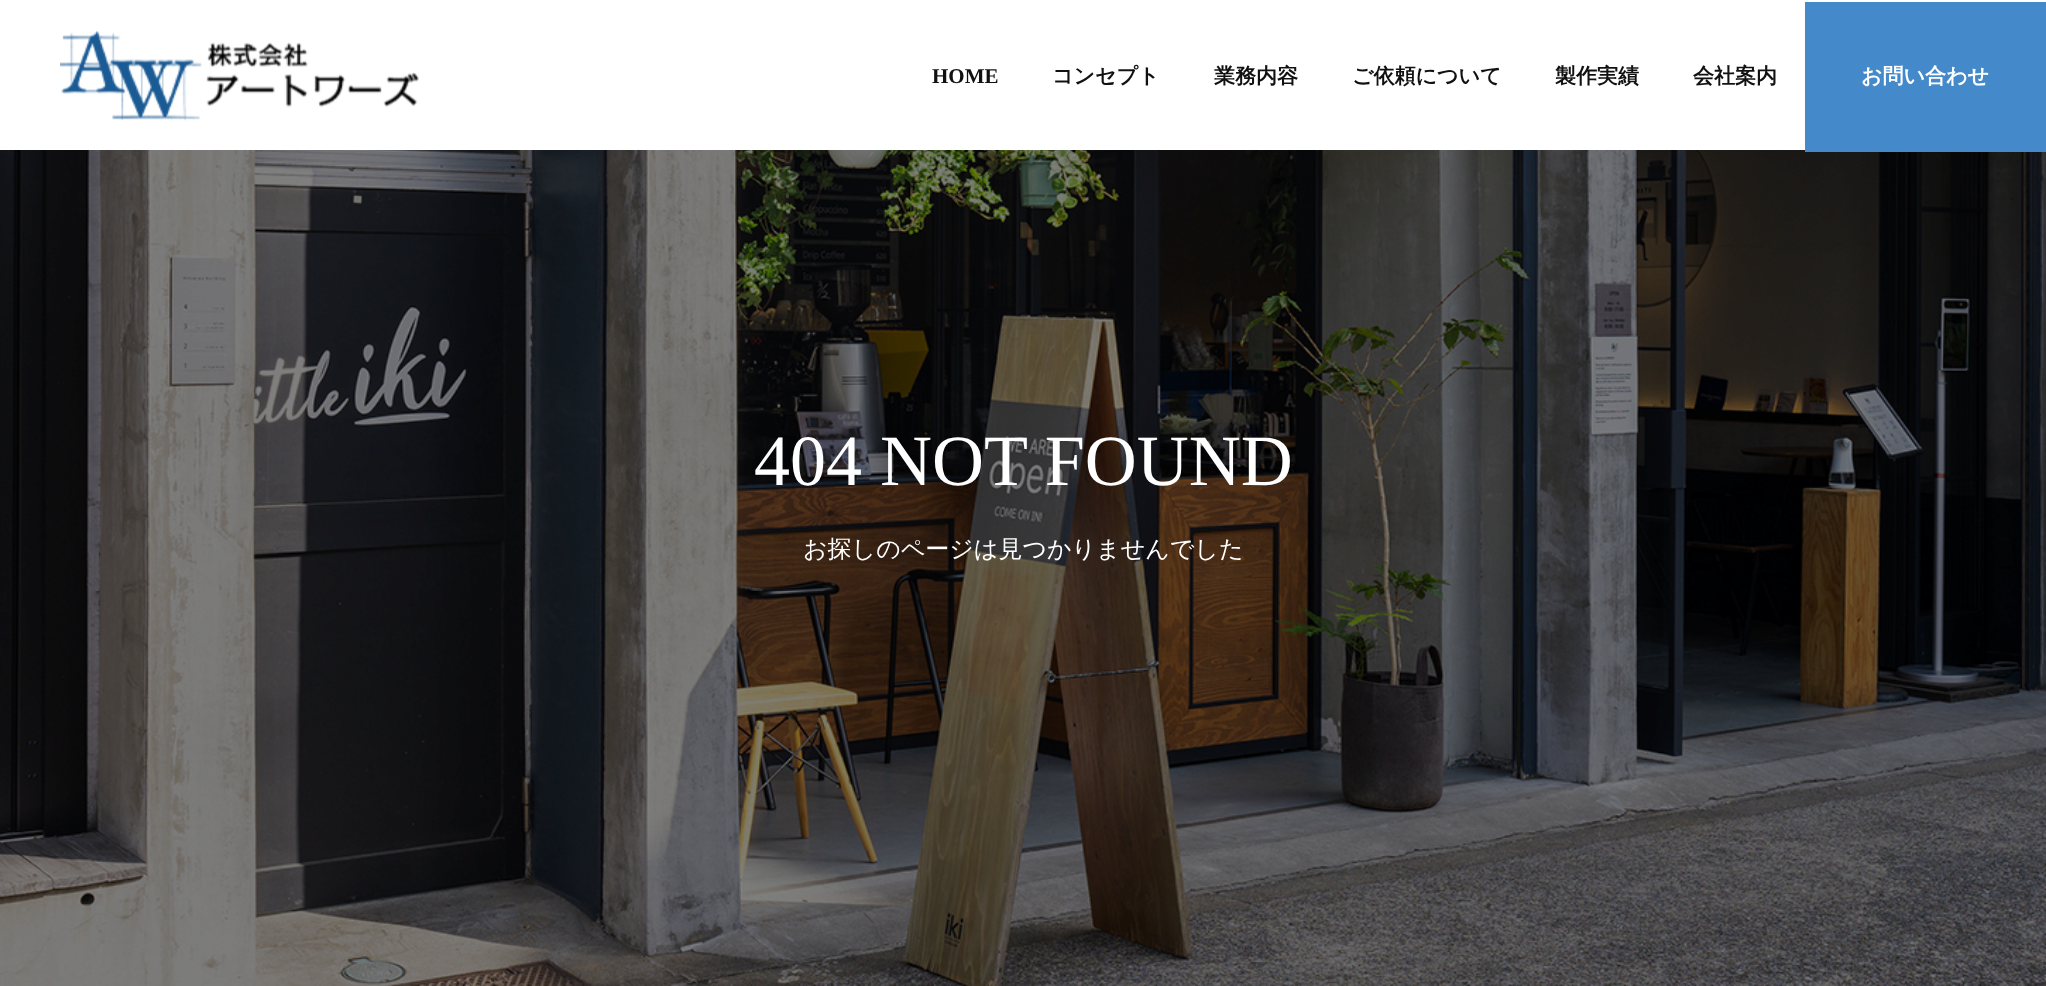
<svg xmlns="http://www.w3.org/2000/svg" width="2046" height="986">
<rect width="100%" height="100%" fill="#fff"/>
<image x="60" y="30" width="359" height="91" href="media/1.png"/>
<text x="932" y="83" style="font-family:Liberation Serif;font-size:21px;font-weight:bold;fill:#111">HOME</text>
<text x="1052" y="83" style="font-family:WenQuanYi Zen Hei;font-size:21px;font-weight:bold;fill:#111">コンセプト</text>
<text x="1214" y="83" style="font-family:WenQuanYi Zen Hei;font-size:21px;font-weight:bold;fill:#111">業務内容</text>
<text x="1352" y="83" style="font-family:WenQuanYi Zen Hei;font-size:21px;font-weight:bold;fill:#111">ご依頼について</text>
<text x="1555" y="83" style="font-family:WenQuanYi Zen Hei;font-size:21px;font-weight:bold;fill:#111">製作実績</text>
<text x="1693" y="83" style="font-family:WenQuanYi Zen Hei;font-size:21px;font-weight:bold;fill:#111">会社案内</text>
<image x="0" y="150" width="2046" height="836" href="media/2.png"/>
<rect x="1805" y="2" width="241" height="150" fill="#448aca"/>
<text x="1861" y="83" style="font-family:WenQuanYi Zen Hei;font-size:21px;font-weight:bold;fill:#fff">お問い合わせ</text>
<text x="754" y="485" style="font-family:Liberation Serif;font-size:72px;fill:#fff">404 NOT FOUND</text>
<text x="803" y="557" style="font-family:WenQuanYi Zen Hei;font-size:24px;font-weight:500;fill:#fff">お探しのページは見つかりませんでした</text>
</svg>
